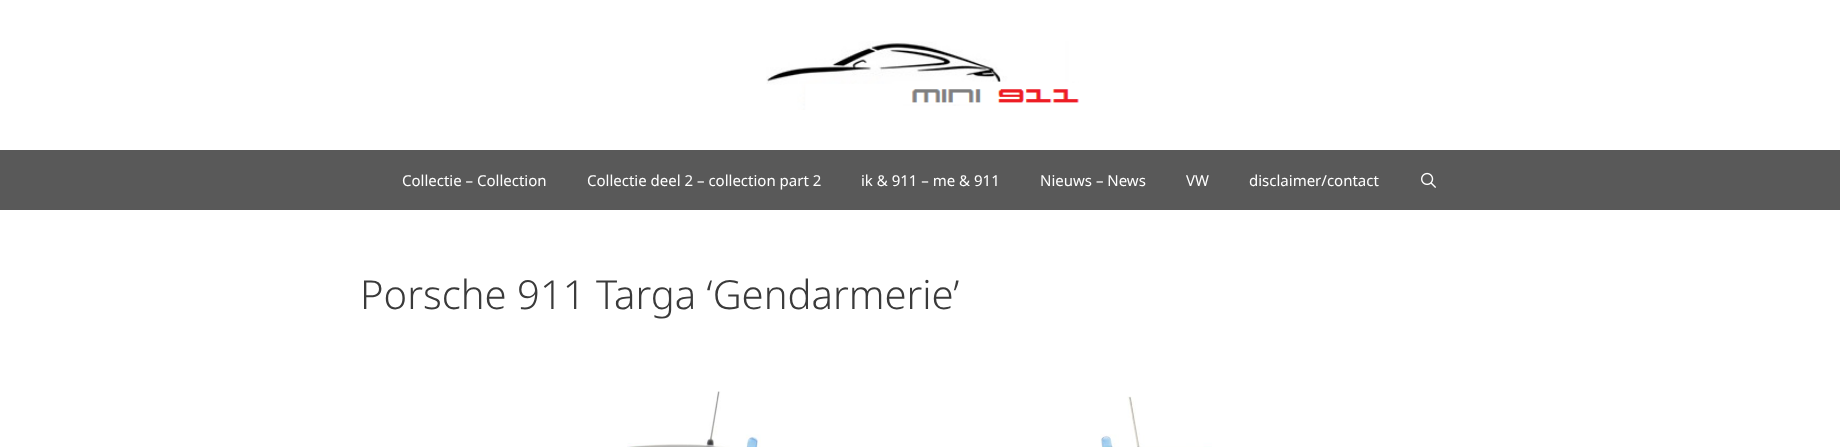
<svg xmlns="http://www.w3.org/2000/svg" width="1840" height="447">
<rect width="100%" height="100%" fill="#fff"/>
<image x="766" y="41" width="313" height="69" href="media/1.png"/>
<rect y="150" width="1840" height="60" fill="#595959"/>
<text x="402" y="186" style="font-family:Noto Sans;font-size:15px;fill:#fff">Collectie – Collection</text>
<text x="587" y="186" style="font-family:Noto Sans;font-size:15px;fill:#fff">Collectie deel 2 – collection part 2</text>
<text x="861" y="186" style="font-family:Noto Sans;font-size:15px;fill:#fff">ik &amp; 911 – me &amp; 911</text>
<text x="1040" y="186" style="font-family:Noto Sans;font-size:15px;fill:#fff">Nieuws – News</text>
<text x="1186" y="186" style="font-family:Noto Sans;font-size:15px;fill:#fff">VW</text>
<text x="1249" y="186" style="font-family:Noto Sans;font-size:15px;fill:#fff">disclaimer/contact</text>
<image x="1421" y="172" width="15" height="16" href="media/2.png"/>
<text x="360" y="309" style="font-family:Noto Sans;font-size:40px;font-weight:300;fill:#3a3a3a">Porsche 911 Targa ‘Gendarmerie’</text>
<image x="627" y="391" width="134" height="56" href="media/3.png"/>
<image x="1100" y="396" width="112" height="51" href="media/4.png"/>
</svg>
